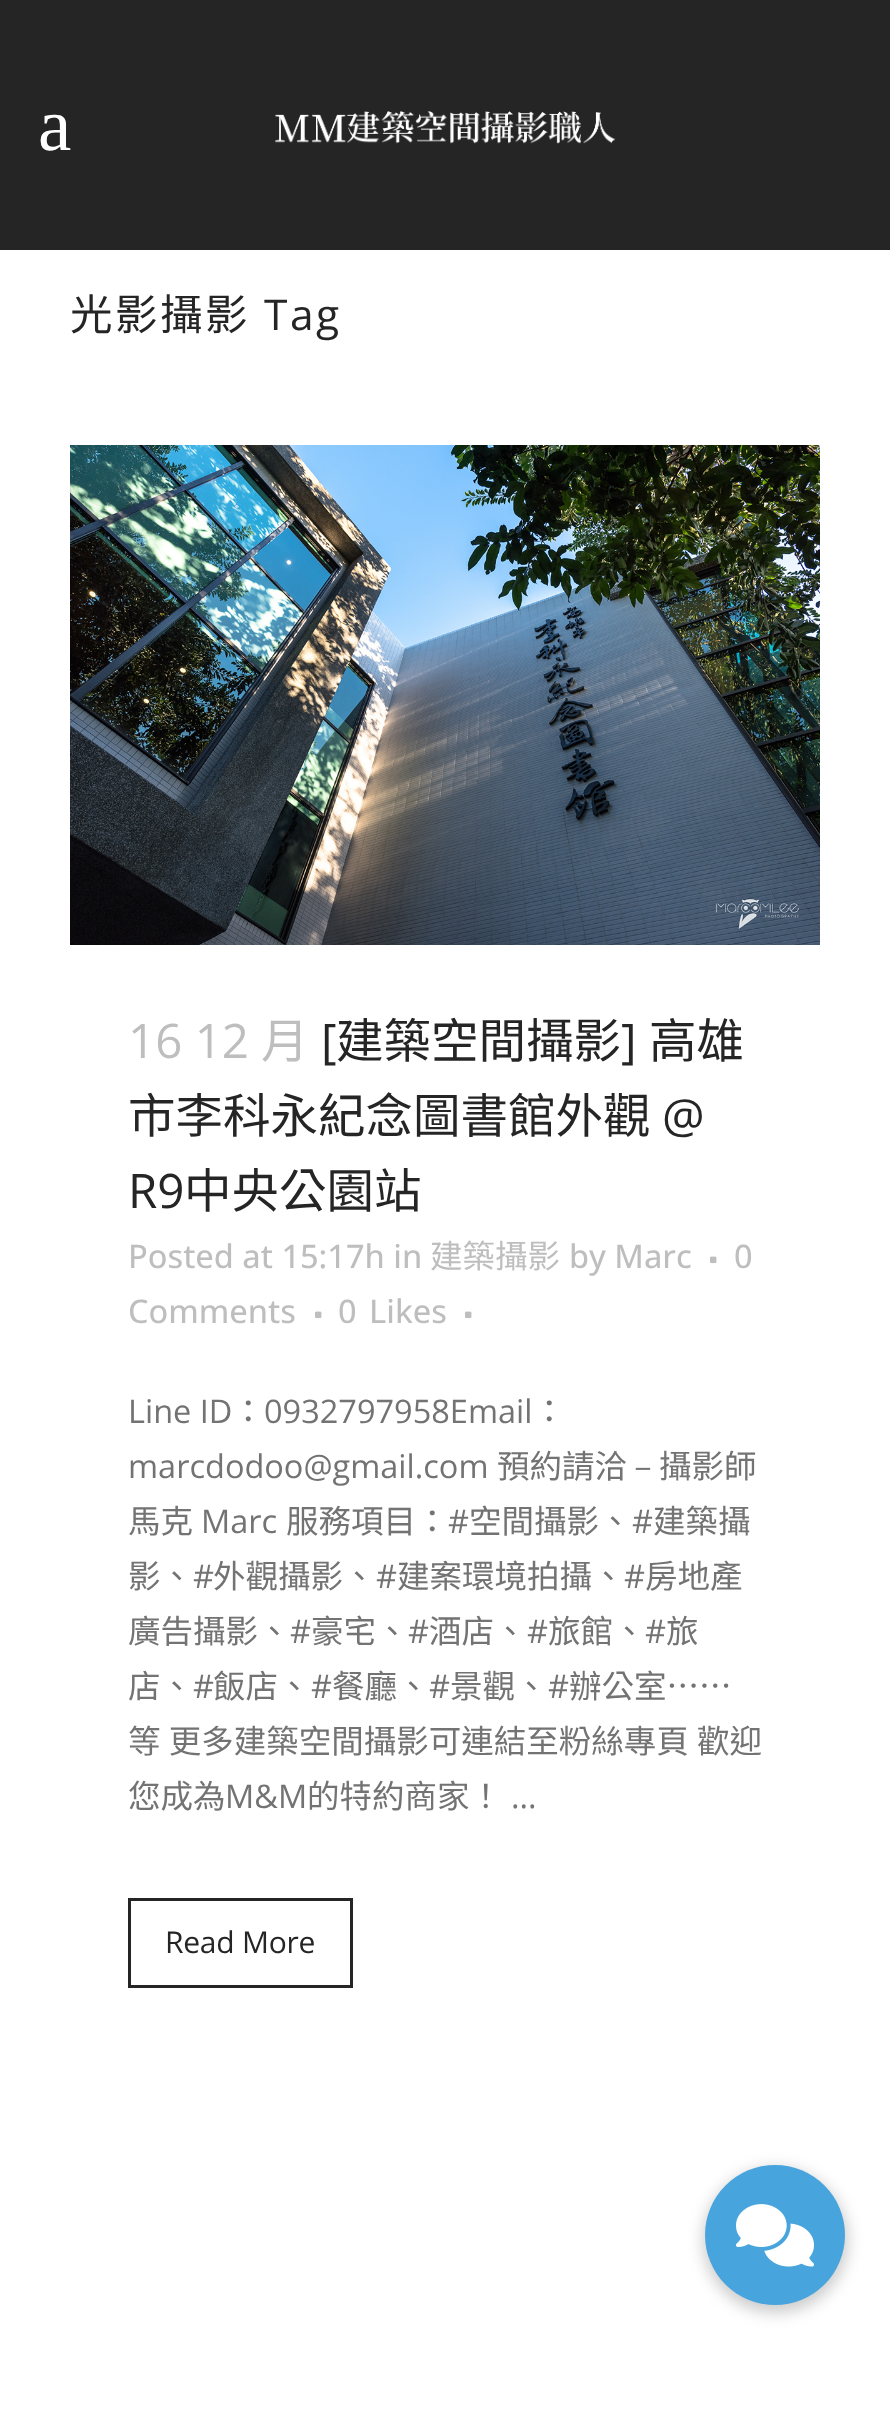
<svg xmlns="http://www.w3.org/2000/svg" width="890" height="2426">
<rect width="100%" height="100%" fill="#fff"/>
<rect width="890" height="250" fill="#252525"/>
<text x="38" y="150" style="font-family:Liberation Serif;font-size:75px;fill:#fff">a</text>
<image x="275" y="111" width="341" height="33" href="media/1.png"/>
<text x="70" y="330" style="font-family:Noto Sans CJK TC;font-size:42.5px;letter-spacing:2.5px;fill:#252525">光影攝影</text>
<text x="264" y="330" style="font-family:Open Sans;font-size:42.5px;letter-spacing:2.5px;fill:#252525">Tag</text>
<image x="70" y="445" width="750" height="500" href="media/2.png"/>
<text x="128" y="1058" style="font-family:Open Sans;font-size:47.5px;fill:#bebebe">16 12</text>
<text x="261" y="1058" style="font-family:Noto Sans CJK TC;font-size:47.5px;fill:#bebebe">月</text>
<text x="321" y="1058" style="font-family:Open Sans;font-size:47.5px;fill:#252525">[</text>
<text x="336" y="1058" style="font-family:Noto Sans CJK TC;font-size:47.5px;fill:#252525">建築空間攝影</text>
<text x="621" y="1058" style="font-family:Open Sans;font-size:47.5px;fill:#252525">]</text>
<text x="649" y="1058" style="font-family:Noto Sans CJK TC;font-size:47.5px;fill:#252525">高雄</text>
<text x="128" y="1133" style="font-family:Noto Sans CJK TC;font-size:47.5px;fill:#252525">市李科永紀念圖書館外觀</text>
<text x="662" y="1133" style="font-family:Open Sans;font-size:47.5px;fill:#252525">@</text>
<text x="128" y="1208" style="font-family:Open Sans;font-size:47.5px;fill:#252525">R9</text>
<text x="184" y="1208" style="font-family:Noto Sans CJK TC;font-size:47.5px;fill:#252525">中央公園站</text>
<text x="128" y="1268" style="font-family:Open Sans;font-size:32.5px;font-weight:500;fill:#bebebe">Posted at 15:17h in</text>
<text x="430" y="1268" style="font-family:Noto Sans CJK TC;font-size:32.5px;fill:#bebebe">建築攝影</text>
<text x="569" y="1268" style="font-family:Open Sans;font-size:32.5px;font-weight:500;fill:#bebebe">by Marc</text>
<image x="710" y="1256" width="7" height="8" href="media/3.png"/>
<text x="734" y="1268" style="font-family:Open Sans;font-size:32.5px;font-weight:500;fill:#bebebe">0</text>
<text x="128" y="1323" style="font-family:Open Sans;font-size:32.5px;font-weight:500;fill:#bebebe">Comments</text>
<image x="315" y="1311" width="7" height="8" href="media/3.png"/>
<text x="338" y="1323" style="font-family:Open Sans;font-size:32.5px;font-weight:500;fill:#bebebe">0</text>
<text x="369" y="1323" style="font-family:Open Sans;font-size:32.5px;font-weight:500;fill:#bebebe">Likes</text>
<image x="465" y="1311" width="7" height="8" href="media/3.png"/>
<text x="128" y="1423" style="font-family:Open Sans;font-size:32.5px;fill:#737373">Line ID</text>
<text x="232" y="1423" style="font-family:Noto Sans CJK TC;font-size:32.5px;fill:#737373">：</text>
<text x="264" y="1423" style="font-family:Open Sans;font-size:32.5px;fill:#737373">0932797958Email</text>
<text x="533" y="1423" style="font-family:Noto Sans CJK TC;font-size:32.5px;fill:#737373">：</text>
<text x="128" y="1478" style="font-family:Open Sans;font-size:32.5px;fill:#737373">marcdodoo@gmail.com</text>
<text x="497" y="1478" style="font-family:Noto Sans CJK TC;font-size:32.5px;fill:#737373">預約請洽 – 攝影師</text>
<text x="128" y="1533" style="font-family:Noto Sans CJK TC;font-size:32.5px;fill:#737373">馬克</text>
<text x="201" y="1533" style="font-family:Open Sans;font-size:32.5px;fill:#737373">Marc</text>
<text x="286" y="1533" style="font-family:Noto Sans CJK TC;font-size:32.5px;fill:#737373">服務項目：</text>
<text x="448" y="1533" style="font-family:Open Sans;font-size:32.5px;fill:#737373">#</text>
<text x="469" y="1533" style="font-family:Noto Sans CJK TC;font-size:32.5px;fill:#737373">空間攝影、</text>
<text x="632" y="1533" style="font-family:Open Sans;font-size:32.5px;fill:#737373">#</text>
<text x="653" y="1533" style="font-family:Noto Sans CJK TC;font-size:32.5px;fill:#737373">建築攝</text>
<text x="128" y="1588" style="font-family:Noto Sans CJK TC;font-size:32.5px;fill:#737373">影、</text>
<text x="193" y="1588" style="font-family:Open Sans;font-size:32.5px;fill:#737373">#</text>
<text x="213" y="1588" style="font-family:Noto Sans CJK TC;font-size:32.5px;fill:#737373">外觀攝影、</text>
<text x="376" y="1588" style="font-family:Open Sans;font-size:32.5px;fill:#737373">#</text>
<text x="397" y="1588" style="font-family:Noto Sans CJK TC;font-size:32.5px;fill:#737373">建案環境拍攝、</text>
<text x="624" y="1588" style="font-family:Open Sans;font-size:32.5px;fill:#737373">#</text>
<text x="645" y="1588" style="font-family:Noto Sans CJK TC;font-size:32.5px;fill:#737373">房地產</text>
<text x="128" y="1643" style="font-family:Noto Sans CJK TC;font-size:32.5px;fill:#737373">廣告攝影、</text>
<text x="290" y="1643" style="font-family:Open Sans;font-size:32.5px;fill:#737373">#</text>
<text x="311" y="1643" style="font-family:Noto Sans CJK TC;font-size:32.5px;fill:#737373">豪宅、</text>
<text x="408" y="1643" style="font-family:Open Sans;font-size:32.5px;fill:#737373">#</text>
<text x="429" y="1643" style="font-family:Noto Sans CJK TC;font-size:32.5px;fill:#737373">酒店、</text>
<text x="527" y="1643" style="font-family:Open Sans;font-size:32.5px;fill:#737373">#</text>
<text x="548" y="1643" style="font-family:Noto Sans CJK TC;font-size:32.5px;fill:#737373">旅館、</text>
<text x="645" y="1643" style="font-family:Open Sans;font-size:32.5px;fill:#737373">#</text>
<text x="666" y="1643" style="font-family:Noto Sans CJK TC;font-size:32.5px;fill:#737373">旅</text>
<text x="128" y="1698" style="font-family:Noto Sans CJK TC;font-size:32.5px;fill:#737373">店、</text>
<text x="193" y="1698" style="font-family:Open Sans;font-size:32.5px;fill:#737373">#</text>
<text x="213" y="1698" style="font-family:Noto Sans CJK TC;font-size:32.5px;fill:#737373">飯店、</text>
<text x="311" y="1698" style="font-family:Open Sans;font-size:32.5px;fill:#737373">#</text>
<text x="332" y="1698" style="font-family:Noto Sans CJK TC;font-size:32.5px;fill:#737373">餐廳、</text>
<text x="429" y="1698" style="font-family:Open Sans;font-size:32.5px;fill:#737373">#</text>
<text x="450" y="1698" style="font-family:Noto Sans CJK TC;font-size:32.5px;fill:#737373">景觀、</text>
<text x="548" y="1698" style="font-family:Open Sans;font-size:32.5px;fill:#737373">#</text>
<text x="569" y="1698" style="font-family:Noto Sans CJK TC;font-size:32.5px;fill:#737373">辦公室⋯⋯</text>
<text x="128" y="1753" word-spacing="1" style="font-family:Noto Sans CJK TC;font-size:32.5px;fill:#737373">等 更多建築空間攝影可連結至粉絲專頁 歡迎</text>
<text x="128" y="1808" style="font-family:Noto Sans CJK TC;font-size:32.5px;fill:#737373">您成為</text>
<text x="225" y="1808" style="font-family:Open Sans;font-size:32.5px;fill:#737373">M&amp;M</text>
<text x="307" y="1808" style="font-family:Noto Sans CJK TC;font-size:32.5px;fill:#737373">的特約商家！</text>
<text x="511" y="1808" style="font-family:Open Sans;font-size:32.5px;fill:#737373">...</text>
<rect x="129.5" y="1899.5" width="222" height="87" fill="none" stroke="#252525" stroke-width="3"/>
<text x="165" y="1953" style="font-family:Open Sans;font-size:30px;letter-spacing:-0.25px;fill:#252525">Read More</text>
<rect x="703" y="2168" width="145" height="145" rx="72.5" fill="#00000033" filter="blur(7.5px)"/>
<circle cx="775" cy="2235" r="70" fill="#48a4dc"/>
<image x="735" y="2204" width="80" height="63" href="media/4.png"/>
</svg>
